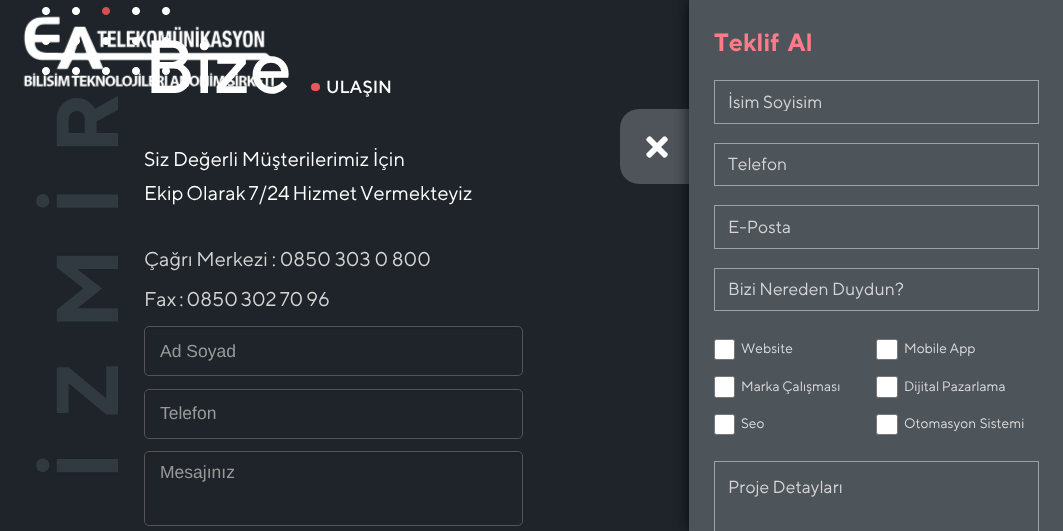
<svg xmlns="http://www.w3.org/2000/svg" width="1063" height="531">
<defs>
<clipPath id="clip1"><rect x="728" y="91" width="297" height="20"/></clipPath>
</defs>
<rect width="100%" height="100%" fill="#1e2429"/>
<image x="42" y="7" width="128" height="68" href="media/1.png"/>
<text x="144" y="93" style="font-family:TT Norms;font-size:75px;font-weight:500;fill:#fff">Bize</text>
<rect x="311" y="83" width="9" height="8" rx="4" fill="#eb555b"/>
<text x="326" y="93" style="font-family:TT Norms;font-size:17.5px;font-weight:500;fill:#fff">ULAŞIN</text>
<text x="118" y="480" transform="rotate(-90 118 480)" style="font-family:TT Norms;font-size:87.5px;font-weight:bold;letter-spacing:32.5px;fill:#313a41">İZMİR</text>
<text x="144" y="166" style="font-family:TT Norms;font-size:20px;fill:#fff">Siz Değerli Müşterilerimiz İçin</text>
<text x="144" y="200" word-spacing="-1" style="font-family:TT Norms;font-size:20px;fill:#fff">Ekip Olarak 7/24 Hizmet Vermekteyiz</text>
<text x="144" y="266" style="font-family:TT Norms;font-size:20px;fill:#d5d5d5">Çağrı Merkezi : 0850 303 0 800</text>
<text x="144" y="306" word-spacing="-0.75" style="font-family:TT Norms;font-size:20px;fill:#d5d5d5">Fax : 0850 302 70 96</text>
<path d="M149 329h369l2 1c0-1-2-2-3-2h-368c-2 0-4 2-4 4c0-2 2-3 4-3z" fill="#1c2126"/>
<rect x="144.5" y="326.5" width="378" height="49" rx="4.5" fill="none" stroke="#545454"/>
<text x="160" y="357" style="font-family:Liberation Sans;font-size:17.5px;fill:#999">Ad Soyad</text>
<path d="M149 391h369c2 0 3 2 3 4c0-3-1-5-4-5h-368c-3 0-4 2-4 5c0-2 2-4 4-4z" fill="#1c2126"/>
<rect x="144.5" y="389.5" width="378" height="49" rx="4.5" fill="none" stroke="#545454"/>
<text x="160" y="419" style="font-family:Liberation Sans;font-size:17.5px;fill:#999">Telefon</text>
<path d="M149 454h369c2 0 3 1 3 4c0-3-1-5-4-5h-368c-3 0-4 2-4 5c0-3 2-4 4-4z" fill="#1c2126"/>
<rect x="144.5" y="451.5" width="378" height="74" rx="4.5" fill="none" stroke="#545454"/>
<text x="160" y="478" style="font-family:Liberation Sans;font-size:17.5px;fill:#999">Mesajınız</text>
<image x="23" y="16" width="251" height="71" href="media/2.png"/>
<path d="M639 109h56v75h-56c-10.5 0-19-8.5-19-19v-37c0-10.5 8.5-19 19-19z" fill="#4e545a"/>
<image x="646" y="136" width="22" height="22" href="media/3.png"/>
<rect x="689" width="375" height="531" fill="#000000bf" filter="blur(7.5px)"/>
<rect x="689" width="374" height="531" fill="#4d545a"/>
<text x="714" y="51" word-spacing="3" style="font-family:TT Norms;font-size:25px;font-weight:bold;fill:#ff7b89">Teklif Al</text>
<rect x="714.5" y="80.5" width="324" height="43" fill="none" stroke="#a1a1a1"/>
<g clip-path="url(#clip1)">
<text x="728" y="108" style="font-family:TT Norms;font-size:17.5px;fill:#d5d5d5">İsim Soyisim</text>
</g>
<rect x="714.5" y="143.5" width="324" height="42" fill="none" stroke="#a1a1a1"/>
<text x="728" y="170" style="font-family:TT Norms;font-size:17.5px;fill:#d5d5d5">Telefon</text>
<rect x="714.5" y="205.5" width="324" height="43" fill="none" stroke="#a1a1a1"/>
<text x="728" y="233" style="font-family:TT Norms;font-size:17.5px;fill:#d5d5d5">E-Posta</text>
<rect x="714.5" y="268.5" width="324" height="42" fill="none" stroke="#a1a1a1"/>
<text x="728" y="295" style="font-family:TT Norms;font-size:17.5px;fill:#d5d5d5">Bizi Nereden Duydun?</text>
<rect x="714.5" y="339.5" width="20" height="20" rx="2" fill="#fff" stroke="#767676"/>
<text x="741" y="353" style="font-family:TT Norms;font-size:13.75px;fill:#dbdbdb">Website</text>
<rect x="876.5" y="339.5" width="21" height="20" rx="2" fill="#fff" stroke="#767676"/>
<text x="904" y="353" style="font-family:TT Norms;font-size:13.75px;fill:#dbdbdb">Mobile App</text>
<rect x="714.5" y="376.5" width="20" height="21" rx="2" fill="#fff" stroke="#767676"/>
<text x="741" y="391" style="font-family:TT Norms;font-size:13.75px;fill:#dbdbdb">Marka Çalışması</text>
<rect x="876.5" y="376.5" width="21" height="21" rx="2" fill="#fff" stroke="#767676"/>
<text x="904" y="391" style="font-family:TT Norms;font-size:13.75px;fill:#dbdbdb">Dijital Pazarlama</text>
<rect x="714.5" y="414.5" width="20" height="20" rx="2" fill="#fff" stroke="#767676"/>
<text x="741" y="428" style="font-family:TT Norms;font-size:13.75px;fill:#dbdbdb">Seo</text>
<rect x="876.5" y="414.5" width="21" height="20" rx="2" fill="#fff" stroke="#767676"/>
<text x="904" y="428" word-spacing="1" style="font-family:TT Norms;font-size:13.75px;fill:#dbdbdb">Otomasyon Sistemi</text>
<rect x="714.5" y="461.5" width="324" height="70" fill="none" stroke="#a1a1a1"/>
<text x="728" y="493" style="font-family:TT Norms;font-size:17.5px;fill:#d5d5d5">Proje Detayları</text>
</svg>
